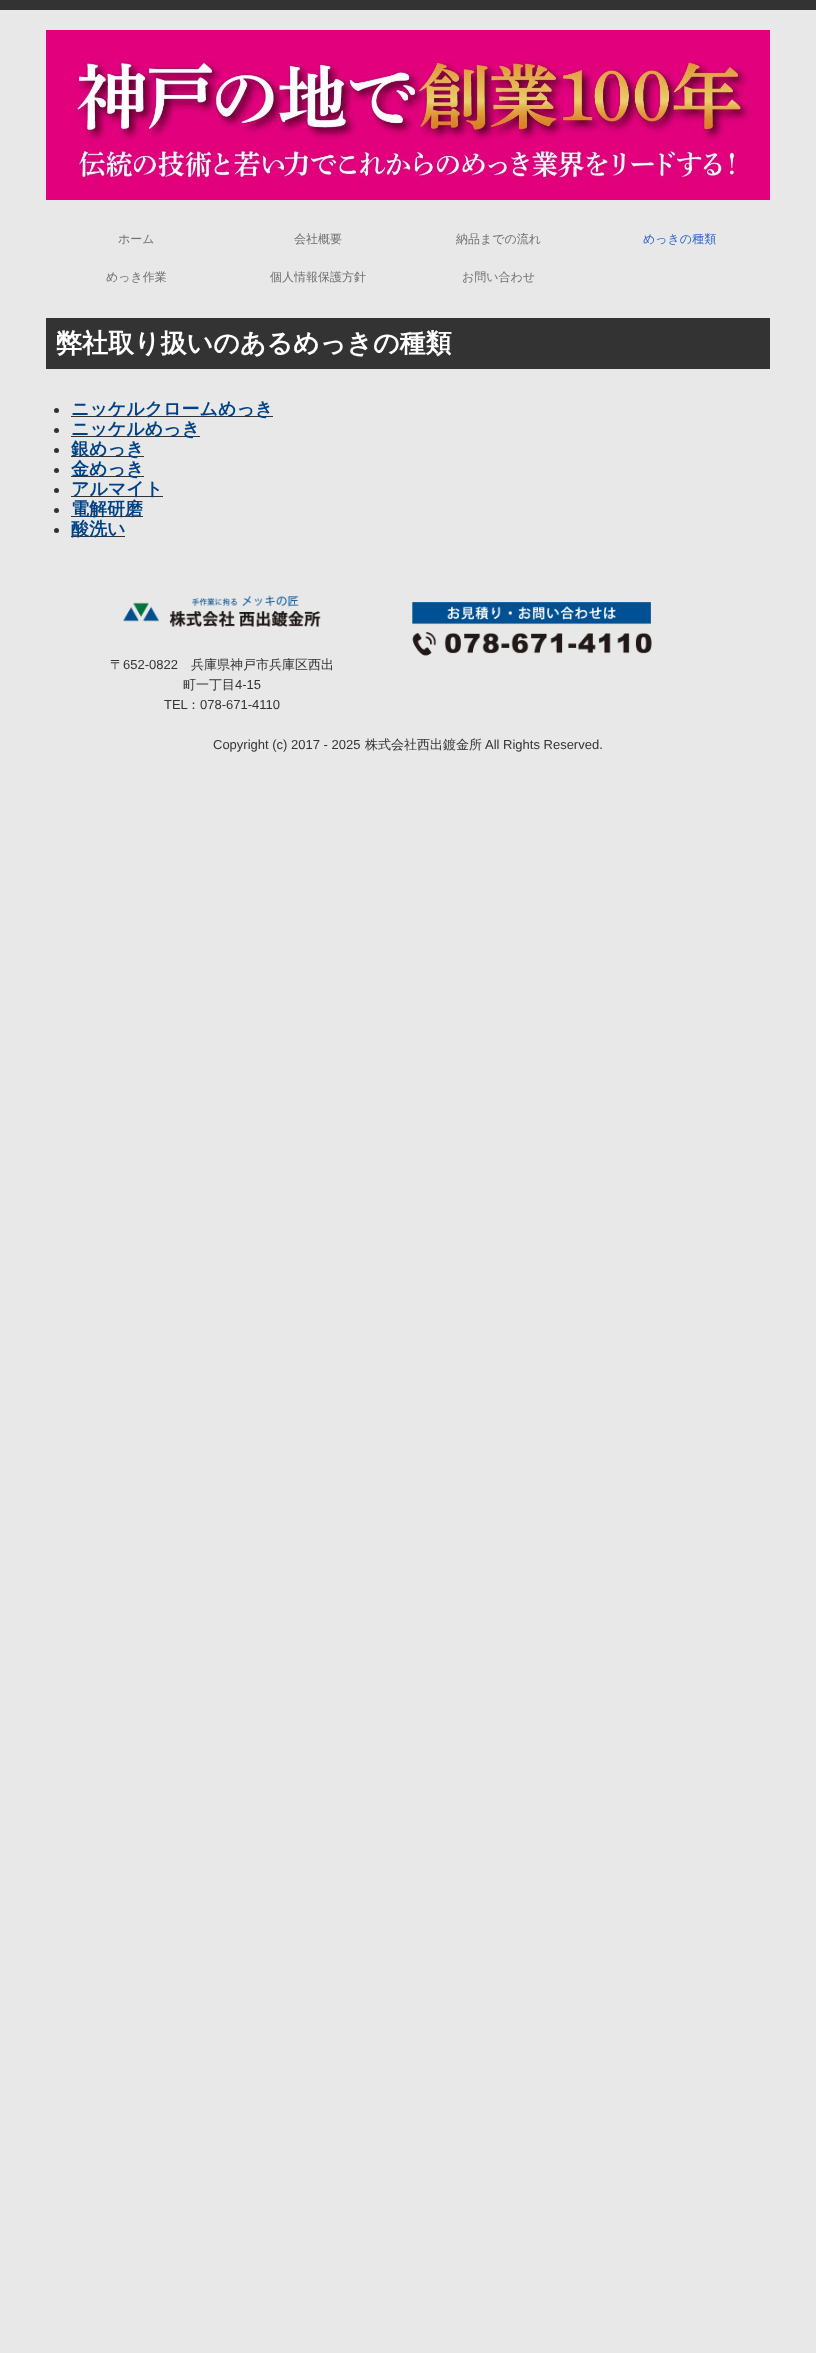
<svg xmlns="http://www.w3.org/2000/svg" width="816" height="2353">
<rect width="100%" height="100%" fill="#e8e8e8"/>
<rect width="816" height="10" fill="#333"/>
<image x="46" y="30" width="724" height="170" href="media/1.png"/>
<text x="118" y="243" style="font-family:WenQuanYi Zen Hei;font-size:12px;font-weight:500;fill:#707070">ホーム</text>
<text x="294" y="243" style="font-family:WenQuanYi Zen Hei;font-size:12px;font-weight:500;fill:#707070">会社概要</text>
<text x="456" y="243" style="font-family:WenQuanYi Zen Hei;font-size:12px;font-weight:500;fill:#707070">納品までの流れ</text>
<text x="643" y="243" style="font-family:WenQuanYi Zen Hei;font-size:12px;font-weight:500;fill:#2d65cd">めっきの種類</text>
<text x="106" y="281" style="font-family:WenQuanYi Zen Hei;font-size:12px;font-weight:500;fill:#707070">めっき作業</text>
<text x="270" y="281" style="font-family:WenQuanYi Zen Hei;font-size:12px;font-weight:500;fill:#707070">個人情報保護方針</text>
<text x="462" y="281" style="font-family:WenQuanYi Zen Hei;font-size:12px;font-weight:500;fill:#707070">お問い合わせ</text>
<rect x="46" y="318" width="724" height="51" fill="#333"/>
<text x="56" y="352" style="font-family:WenQuanYi Zen Hei;font-size:26px;font-weight:bold;fill:#fff">弊社取り扱いのあるめっきの種類</text>
<circle cx="56.5" cy="410.5" r="2.5" fill="#333"/>
<rect x="71" y="416" width="202" height="1" fill="#333"/>
<text x="71" y="415" style="font-family:WenQuanYi Zen Hei;font-size:18px;font-weight:bold;fill:#004284">ニッケルクロームめっき</text>
<circle cx="56.5" cy="430.5" r="2.5" fill="#333"/>
<rect x="71" y="436" width="129" height="1" fill="#333"/>
<text x="71" y="435" style="font-family:WenQuanYi Zen Hei;font-size:18px;font-weight:bold;fill:#004284">ニッケルめっき</text>
<circle cx="56.5" cy="450.5" r="2.5" fill="#333"/>
<rect x="71" y="456" width="73" height="1" fill="#333"/>
<text x="71" y="455" style="font-family:WenQuanYi Zen Hei;font-size:18px;font-weight:bold;fill:#004284">銀めっき</text>
<circle cx="56.5" cy="470.5" r="2.5" fill="#333"/>
<rect x="71" y="476" width="73" height="1" fill="#333"/>
<text x="71" y="475" style="font-family:WenQuanYi Zen Hei;font-size:18px;font-weight:bold;fill:#004284">金めっき</text>
<circle cx="56.5" cy="490.5" r="2.5" fill="#333"/>
<rect x="71" y="496" width="92" height="1" fill="#333"/>
<text x="71" y="495" style="font-family:WenQuanYi Zen Hei;font-size:18px;font-weight:bold;fill:#004284">アルマイト</text>
<circle cx="56.5" cy="510.5" r="2.5" fill="#333"/>
<rect x="71" y="516" width="72" height="1" fill="#333"/>
<text x="71" y="515" style="font-family:WenQuanYi Zen Hei;font-size:18px;font-weight:bold;fill:#004284">電解研磨</text>
<circle cx="56.5" cy="530.5" r="2.5" fill="#333"/>
<rect x="71" y="536" width="54" height="1" fill="#333"/>
<text x="71" y="535" style="font-family:WenQuanYi Zen Hei;font-size:18px;font-weight:bold;fill:#004284">酸洗い</text>
<image x="412" y="602" width="240" height="54" href="media/2.png"/>
<image x="123" y="595" width="198" height="32" href="media/3.png"/>
<text x="110" y="669" style="font-family:WenQuanYi Zen Hei;font-size:13px;font-weight:500;fill:#333">〒</text>
<text x="123" y="669" style="font-family:Liberation Sans;font-size:13px;fill:#333">652-0822</text>
<text x="191" y="669" style="font-family:WenQuanYi Zen Hei;font-size:13px;font-weight:500;fill:#333">兵庫県神戸市兵庫区西出</text>
<text x="183" y="689" style="font-family:WenQuanYi Zen Hei;font-size:13px;font-weight:500;fill:#333">町一丁目</text>
<text x="235" y="689" style="font-family:Liberation Sans;font-size:13px;fill:#333">4-15</text>
<text x="164" y="709" style="font-family:Liberation Sans;font-size:13px;fill:#333">TEL</text>
<text x="187" y="709" style="font-family:WenQuanYi Zen Hei;font-size:13px;font-weight:500;fill:#333">：</text>
<text x="200" y="709" style="font-family:Liberation Sans;font-size:13px;fill:#333">078-671-4110</text>
<text x="213" y="749" style="font-family:Liberation Sans;font-size:13px;fill:#333">Copyright (c) 2017 - 2025</text>
<text x="365" y="749" style="font-family:WenQuanYi Zen Hei;font-size:13px;font-weight:500;fill:#333">株式会社西出鍍金所</text>
<text x="485" y="749" style="font-family:Liberation Sans;font-size:13px;fill:#333">All Rights Reserved.</text>
</svg>
